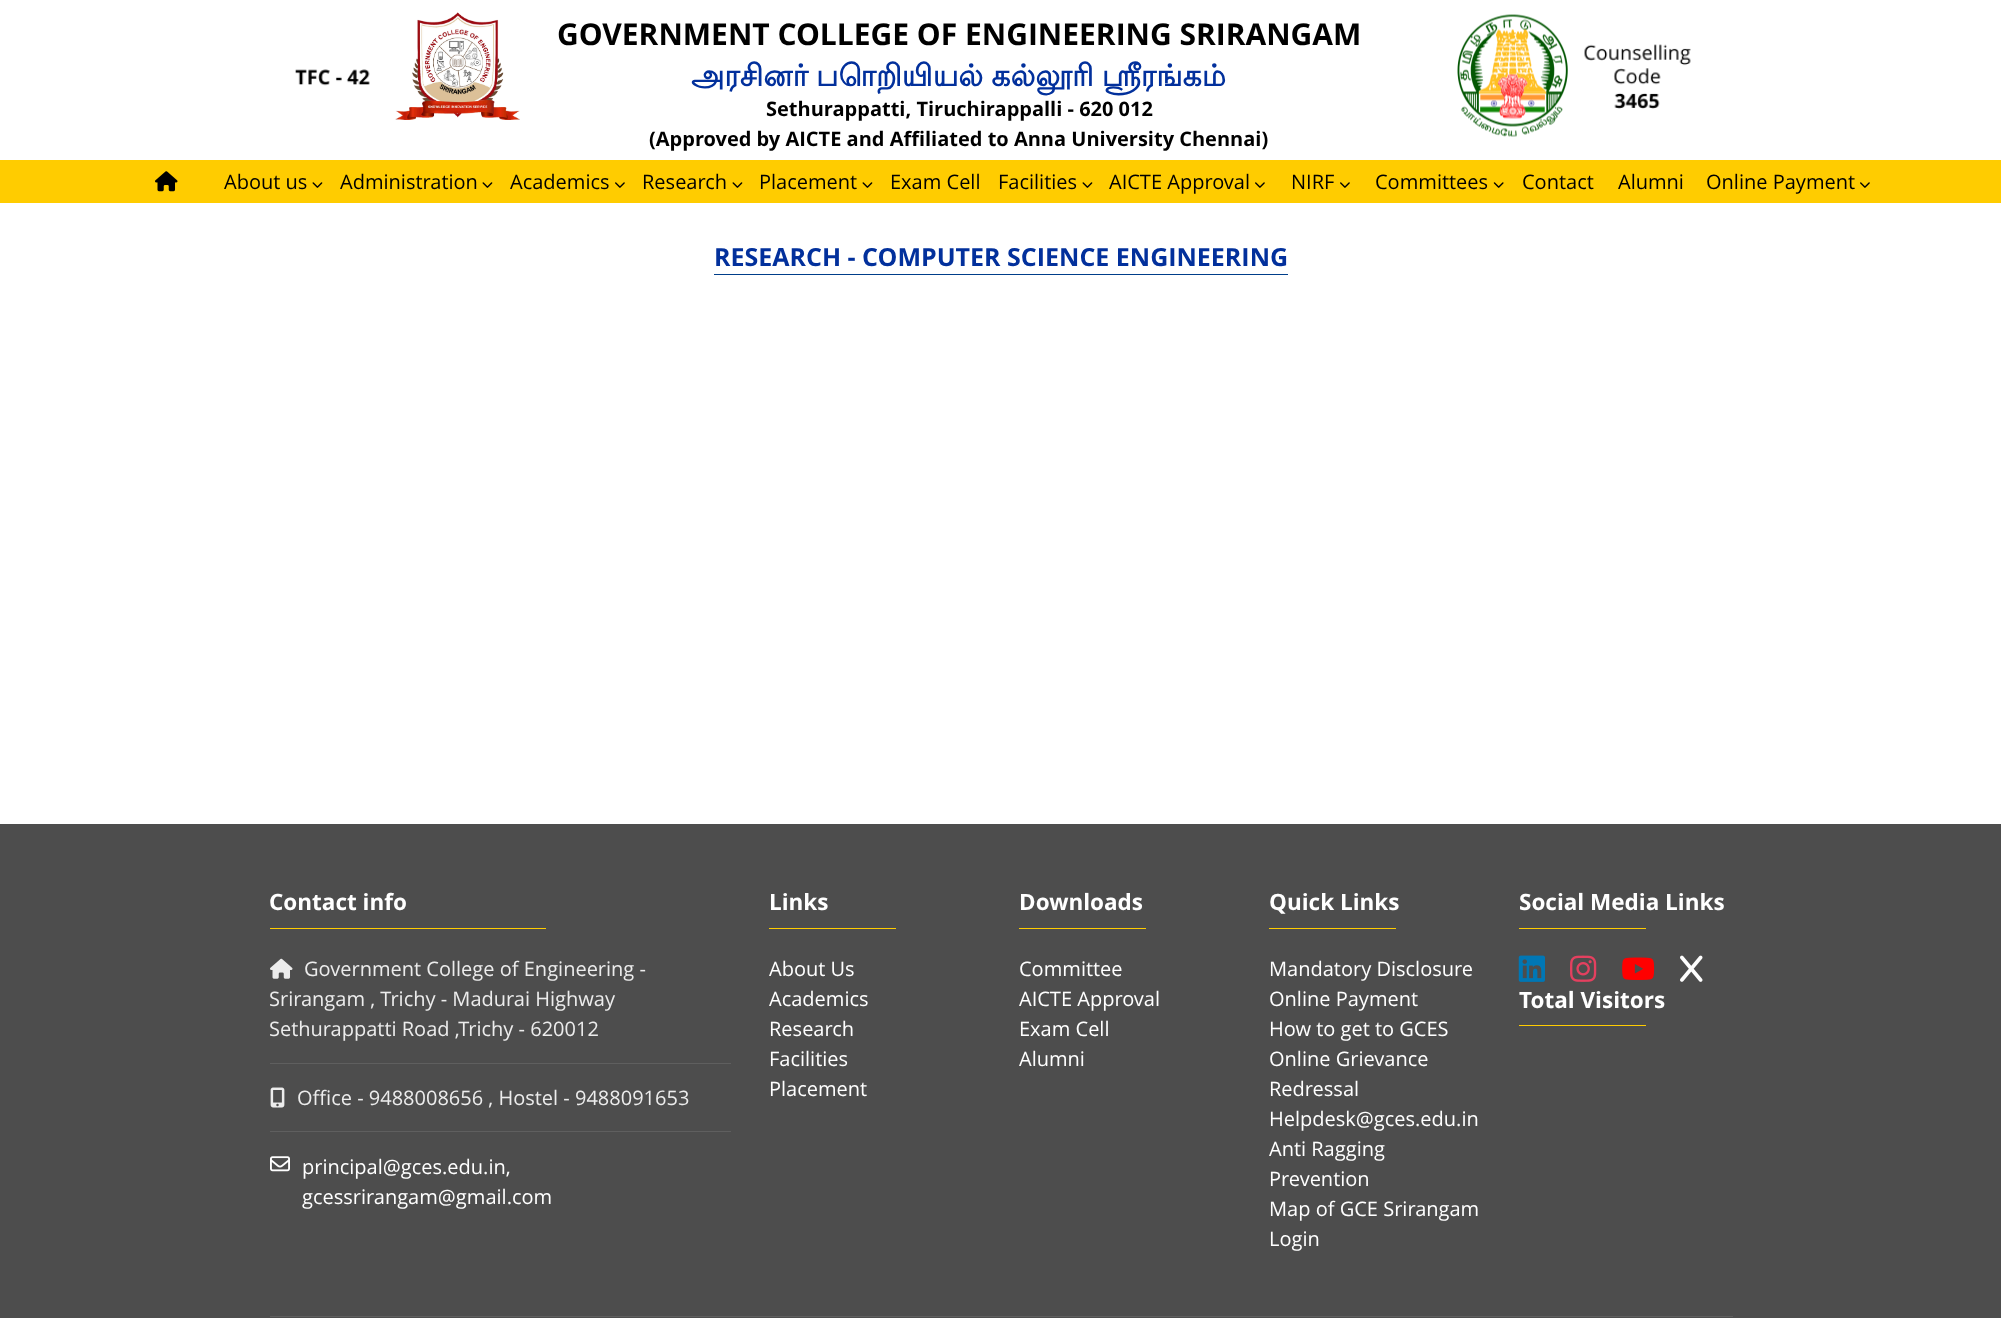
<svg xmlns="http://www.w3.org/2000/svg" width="2001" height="1318">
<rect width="100%" height="100%" fill="#fff"/>
<image x="295" y="69" width="75" height="17" href="media/1.png"/>
<image x="395" y="12" width="125" height="108" href="media/2.png"/>
<text x="557" y="45" style="font-family:Open Sans;font-size:30px;font-weight:bold;fill:#000">GOVERNMENT COLLEGE OF ENGINEERING SRIRANGAM</text>
<text x="691" y="86" word-spacing="-1" style="font-family:Lohit Tamil;font-size:30px;font-weight:bold;fill:#02309c">அரசினர் பொறியியல் கல்லூரி ஸ்ரீரங்கம்</text>
<text x="766" y="116" style="font-family:Open Sans;font-size:20px;font-weight:bold;fill:#000">Sethurappatti, Tiruchirappalli - 620 012</text>
<text x="649" y="146" style="font-family:Open Sans;font-size:20px;font-weight:bold;fill:#000">(Approved by AICTE and Affiliated to Anna University Chennai)</text>
<image x="1457" y="14" width="111" height="123" href="media/3.png"/>
<image x="1584" y="44" width="107" height="65" href="media/4.png"/>
<rect y="160" width="2001" height="43" fill="#fc0"/>
<image x="155" y="171" width="23" height="21" href="media/5.png"/>
<text x="224" y="189" style="font-family:Open Sans;font-size:20px;fill:#000">About us</text>
<image x="312" y="182" width="11" height="6" href="media/6.png"/>
<text x="340" y="189" style="font-family:Open Sans;font-size:20px;fill:#000">Administration</text>
<image x="482" y="182" width="11" height="6" href="media/6.png"/>
<text x="510" y="189" style="font-family:Open Sans;font-size:20px;fill:#000">Academics</text>
<image x="615" y="182" width="10" height="6" href="media/7.png"/>
<text x="642" y="189" style="font-family:Open Sans;font-size:20px;fill:#000">Research</text>
<image x="732" y="182" width="11" height="6" href="media/6.png"/>
<text x="759" y="189" style="font-family:Open Sans;font-size:20px;fill:#000">Placement</text>
<image x="862" y="182" width="11" height="6" href="media/6.png"/>
<text x="890" y="189" style="font-family:Open Sans;font-size:20px;fill:#000">Exam Cell</text>
<text x="998" y="189" style="font-family:Open Sans;font-size:20px;fill:#000">Facilities</text>
<image x="1082" y="182" width="11" height="6" href="media/6.png"/>
<text x="1109" y="189" style="font-family:Open Sans;font-size:20px;fill:#000">AICTE Approval</text>
<image x="1255" y="182" width="10" height="6" href="media/7.png"/>
<text x="1291" y="189" style="font-family:Open Sans;font-size:20px;fill:#000">NIRF</text>
<image x="1340" y="182" width="10" height="6" href="media/7.png"/>
<text x="1375" y="189" style="font-family:Open Sans;font-size:20px;fill:#000">Committees</text>
<image x="1493" y="182" width="11" height="6" href="media/8.png"/>
<text x="1522" y="189" style="font-family:Open Sans;font-size:20px;fill:#000">Contact</text>
<text x="1618" y="189" style="font-family:Open Sans;font-size:20px;fill:#000">Alumni</text>
<text x="1706" y="189" style="font-family:Open Sans;font-size:20px;fill:#000">Online Payment</text>
<image x="1860" y="182" width="10" height="6" href="media/7.png"/>
<text x="714" y="266" style="font-family:Open Sans;font-size:25px;font-weight:bold;fill:#02309c">RESEARCH - COMPUTER SCIENCE ENGINEERING</text>
<rect x="714" y="274" width="574" height="1" fill="#003e8a"/>
<rect y="824" width="2001" height="494" fill="#4d4d4d"/>
<text x="269" y="910" style="font-family:Open Sans;font-size:22.5px;font-weight:bold;fill:#fff">Contact info</text>
<rect x="270" y="928" width="276" height="1" fill="#fc0"/>
<rect x="270" y="1063" width="461" height="1" fill="#5f5f5f"/>
<image x="270" y="958" width="23" height="21" href="media/9.png"/>
<text x="304" y="976" style="font-family:Open Sans;font-size:20px;fill:#ececec">Government College of Engineering -</text>
<text x="269" y="1006" style="font-family:Open Sans;font-size:20px;fill:#ececec">Srirangam , Trichy - Madurai Highway</text>
<text x="269" y="1036" style="font-family:Open Sans;font-size:20px;fill:#ececec">Sethurappatti Road ,Trichy - 620012</text>
<rect x="270" y="1131" width="461" height="1" fill="#5f5f5f"/>
<image x="270" y="1087" width="15" height="21" href="media/10.png"/>
<text x="297" y="1105" style="font-family:Open Sans;font-size:20px;fill:#ececec">Office - 9488008656 , Hostel - 9488091653</text>
<image x="270" y="1156" width="20" height="16" href="media/11.png"/>
<text x="302" y="1174" style="font-family:Open Sans;font-size:20px;fill:#fff">principal@gces.edu.in,</text>
<text x="302" y="1204" style="font-family:Open Sans;font-size:20px;fill:#fff">gcessrirangam@gmail.com</text>
<text x="769" y="910" style="font-family:Open Sans;font-size:22.5px;font-weight:bold;fill:#fff">Links</text>
<rect x="769" y="928" width="127" height="1" fill="#fc0"/>
<text x="769" y="976" style="font-family:Open Sans;font-size:20px;fill:#fff">About Us</text>
<text x="769" y="1006" style="font-family:Open Sans;font-size:20px;fill:#fff">Academics</text>
<text x="769" y="1036" style="font-family:Open Sans;font-size:20px;fill:#fff">Research</text>
<text x="769" y="1066" style="font-family:Open Sans;font-size:20px;fill:#fff">Facilities</text>
<text x="769" y="1096" style="font-family:Open Sans;font-size:20px;fill:#fff">Placement</text>
<text x="1019" y="910" style="font-family:Open Sans;font-size:22.5px;font-weight:bold;fill:#fff">Downloads</text>
<rect x="1019" y="928" width="127" height="1" fill="#fc0"/>
<text x="1019" y="976" style="font-family:Open Sans;font-size:20px;fill:#fff">Committee</text>
<text x="1019" y="1006" style="font-family:Open Sans;font-size:20px;fill:#fff">AICTE Approval</text>
<text x="1019" y="1036" style="font-family:Open Sans;font-size:20px;fill:#fff">Exam Cell</text>
<text x="1019" y="1066" style="font-family:Open Sans;font-size:20px;fill:#fff">Alumni</text>
<text x="1269" y="910" style="font-family:Open Sans;font-size:22.5px;font-weight:bold;fill:#fff">Quick Links</text>
<rect x="1269" y="928" width="127" height="1" fill="#fc0"/>
<text x="1269" y="976" style="font-family:Open Sans;font-size:20px;fill:#fff">Mandatory Disclosure</text>
<text x="1269" y="1006" style="font-family:Open Sans;font-size:20px;fill:#fff">Online Payment</text>
<text x="1269" y="1036" style="font-family:Open Sans;font-size:20px;fill:#fff">How to get to GCES</text>
<text x="1269" y="1066" style="font-family:Open Sans;font-size:20px;fill:#fff">Online Grievance</text>
<text x="1269" y="1096" style="font-family:Open Sans;font-size:20px;fill:#fff">Redressal</text>
<text x="1269" y="1126" style="font-family:Open Sans;font-size:20px;fill:#fff">Helpdesk@gces.edu.in</text>
<text x="1269" y="1156" style="font-family:Open Sans;font-size:20px;fill:#fff">Anti Ragging</text>
<text x="1269" y="1186" style="font-family:Open Sans;font-size:20px;fill:#fff">Prevention</text>
<text x="1269" y="1216" style="font-family:Open Sans;font-size:20px;fill:#fff">Map of GCE Srirangam</text>
<text x="1269" y="1246" style="font-family:Open Sans;font-size:20px;fill:#fff">Login</text>
<text x="1519" y="910" style="font-family:Open Sans;font-size:22.5px;font-weight:bold;fill:#fff">Social Media Links</text>
<rect x="1519" y="928" width="127" height="1" fill="#fc0"/>
<image x="1518" y="955" width="27" height="27" href="media/12.png"/>
<image x="1570" y="955" width="27" height="27" href="media/13.png"/>
<image x="1622" y="957" width="33" height="23" href="media/14.png"/>
<image x="1680" y="955" width="23" height="27" href="media/15.png"/>
<text x="1519" y="1008" style="font-family:Open Sans;font-size:22.5px;font-weight:bold;fill:#fff">Total Visitors</text>
<rect x="1519" y="1025" width="127" height="1" fill="#fc0"/>
<rect x="270" y="1316" width="1463" height="1" fill="#5f5f5f"/>
</svg>
